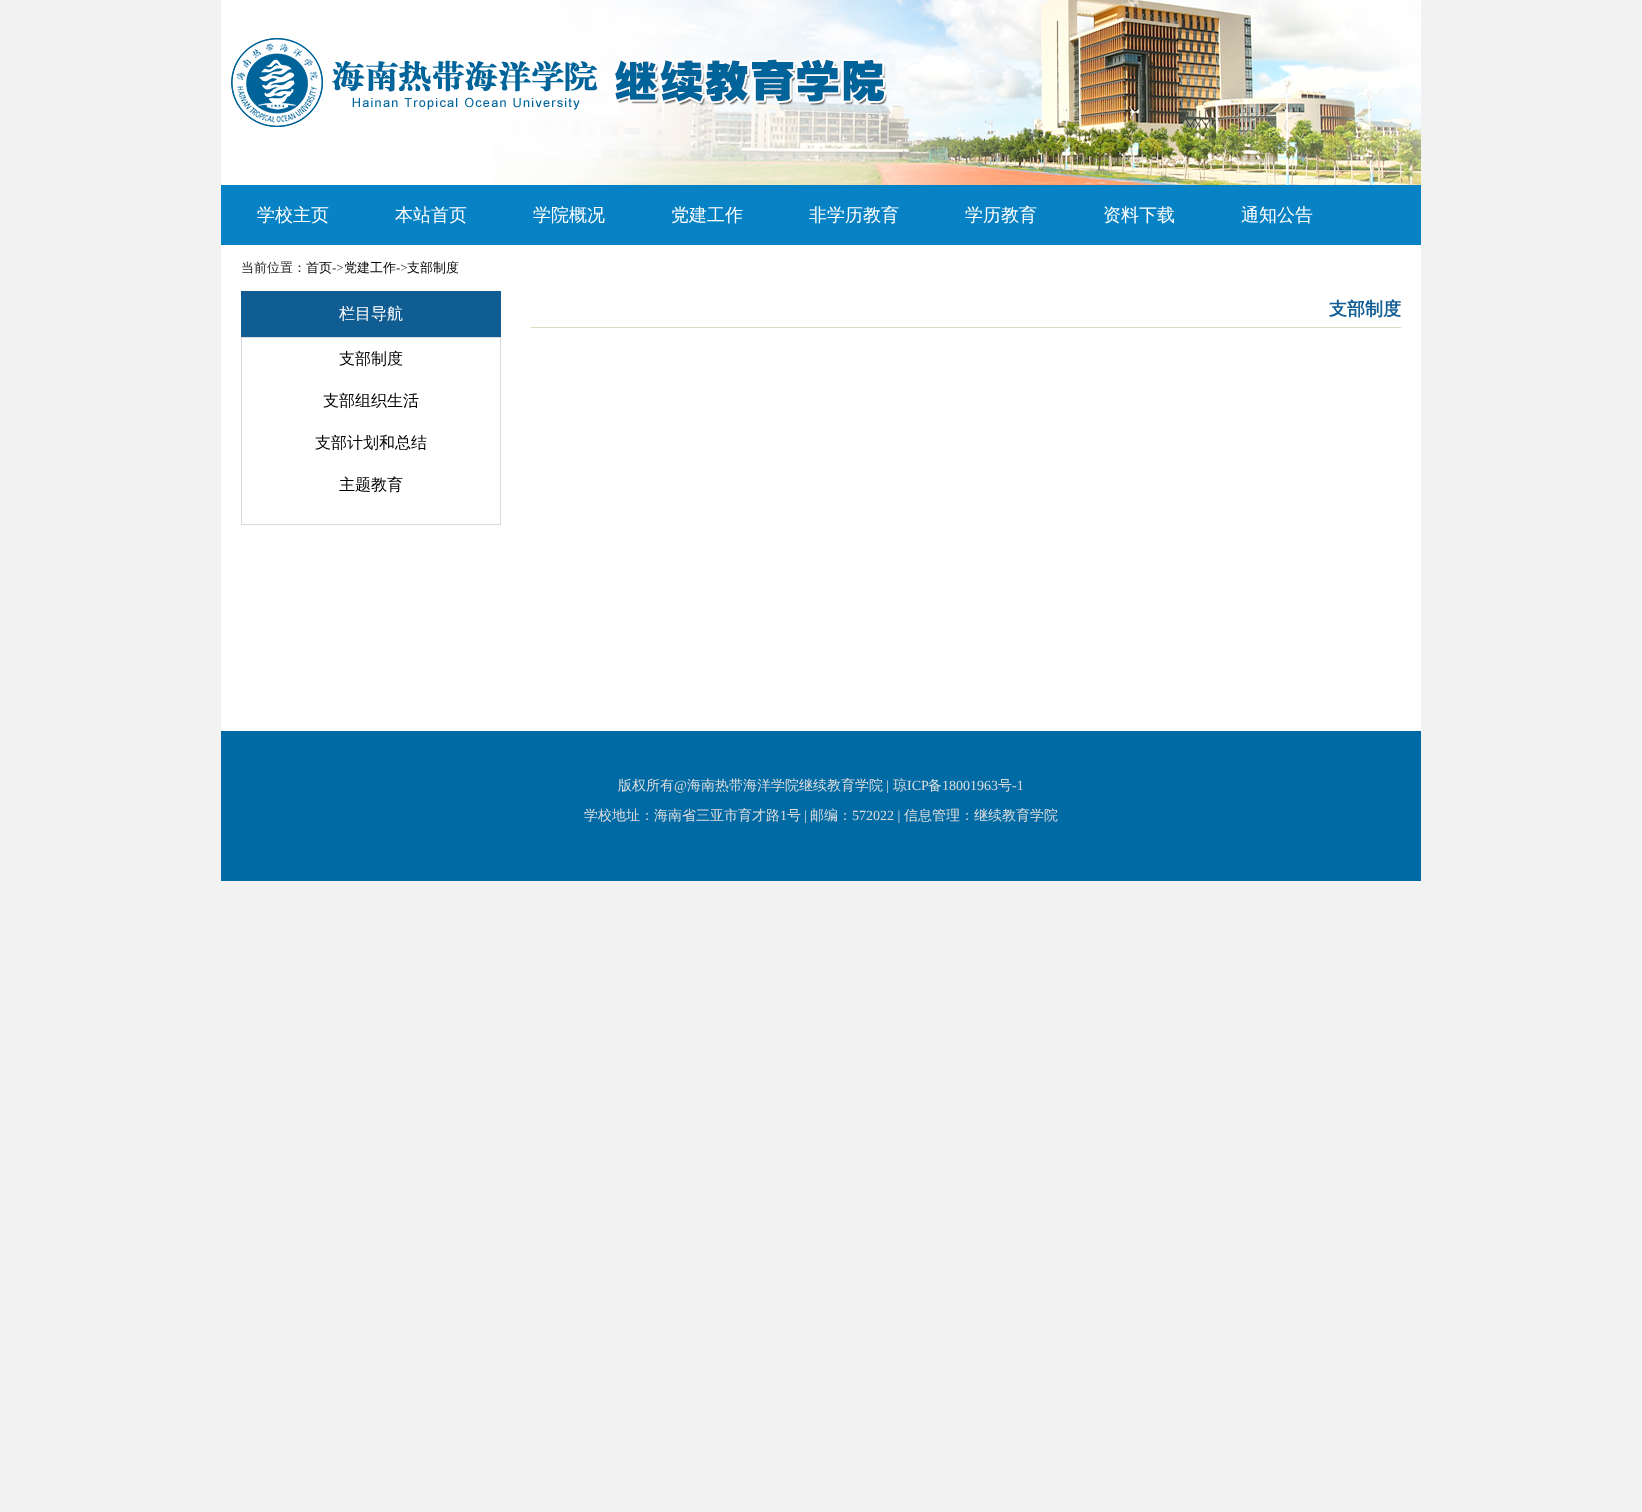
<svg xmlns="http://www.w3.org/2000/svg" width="1642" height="1512">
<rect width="100%" height="100%" fill="#f2f2f2"/>
<rect x="221" width="271" height="185" fill="#fff"/>
<image x="492" y="0" width="929" height="185" href="media/1.png"/>
<image x="231" y="38" width="656" height="89" href="media/2.png"/>
<rect x="221" y="185" width="1200" height="60" fill="#0782c5"/>
<text x="257" y="221" style="font-family:WenQuanYi Zen Hei;font-size:18px;font-weight:500;fill:#fff">学校主页</text>
<text x="395" y="221" style="font-family:WenQuanYi Zen Hei;font-size:18px;font-weight:500;fill:#fff">本站首页</text>
<text x="533" y="221" style="font-family:WenQuanYi Zen Hei;font-size:18px;font-weight:500;fill:#fff">学院概况</text>
<text x="671" y="221" style="font-family:WenQuanYi Zen Hei;font-size:18px;font-weight:500;fill:#fff">党建工作</text>
<text x="809" y="221" style="font-family:WenQuanYi Zen Hei;font-size:18px;font-weight:500;fill:#fff">非学历教育</text>
<text x="965" y="221" style="font-family:WenQuanYi Zen Hei;font-size:18px;font-weight:500;fill:#fff">学历教育</text>
<text x="1103" y="221" style="font-family:WenQuanYi Zen Hei;font-size:18px;font-weight:500;fill:#fff">资料下载</text>
<text x="1241" y="221" style="font-family:WenQuanYi Zen Hei;font-size:18px;font-weight:500;fill:#fff">通知公告</text>
<rect x="221" y="245" width="1200" height="486" fill="#fff"/>
<text x="241" y="272" style="font-family:WenQuanYi Zen Hei;font-size:13px;font-weight:500;fill:#272727">当前位置：</text>
<text x="306" y="272" style="font-family:WenQuanYi Zen Hei;font-size:13px;font-weight:500;fill:#000">首页</text>
<text x="332" y="272" style="font-family:Liberation Serif;font-size:13px;fill:#272727">-&gt;</text>
<text x="344" y="272" style="font-family:WenQuanYi Zen Hei;font-size:13px;font-weight:500;fill:#000">党建工作</text>
<text x="396" y="272" style="font-family:Liberation Serif;font-size:13px;fill:#272727">-&gt;</text>
<text x="407" y="272" style="font-family:WenQuanYi Zen Hei;font-size:13px;font-weight:500;fill:#000">支部制度</text>
<rect x="241" y="291" width="260" height="46" fill="#105d93"/>
<text x="339" y="319" style="font-family:WenQuanYi Zen Hei;font-size:16px;font-weight:500;fill:#fff">栏目导航</text>
<rect x="241.5" y="337.5" width="259" height="187" fill="none" stroke="#dbdbdb"/>
<text x="339" y="364" style="font-family:WenQuanYi Zen Hei;font-size:16px;font-weight:500;fill:#000">支部制度</text>
<text x="323" y="406" style="font-family:WenQuanYi Zen Hei;font-size:16px;font-weight:500;fill:#000">支部组织生活</text>
<text x="315" y="448" style="font-family:WenQuanYi Zen Hei;font-size:16px;font-weight:500;fill:#000">支部计划和总结</text>
<text x="339" y="490" style="font-family:WenQuanYi Zen Hei;font-size:16px;font-weight:500;fill:#000">主题教育</text>
<rect x="531" y="327" width="870" height="1" fill="#dbddbd"/>
<text x="1329" y="315" style="font-family:WenQuanYi Zen Hei;font-size:18px;font-weight:bold;fill:#105d93">支部制度</text>
<rect x="221" y="731" width="1200" height="150" fill="#006aa4"/>
<text x="618" y="790" style="font-family:WenQuanYi Zen Hei;font-size:14px;font-weight:500;fill:#ddd">版权所有</text>
<text x="674" y="790" style="font-family:Liberation Serif;font-size:14px;fill:#ddd">@</text>
<text x="687" y="790" style="font-family:WenQuanYi Zen Hei;font-size:14px;font-weight:500;fill:#ddd">海南热带海洋学院继续教育学院</text>
<text x="886" y="790" style="font-family:Liberation Serif;font-size:14px;fill:#ddd">|</text>
<text x="893" y="790" style="font-family:WenQuanYi Zen Hei;font-size:14px;font-weight:500;fill:#ddd">琼</text>
<text x="907" y="790" style="font-family:Liberation Serif;font-size:14px;fill:#ddd">ICP</text>
<text x="928" y="790" style="font-family:WenQuanYi Zen Hei;font-size:14px;font-weight:500;fill:#ddd">备</text>
<text x="942" y="790" style="font-family:Liberation Serif;font-size:14px;fill:#ddd">18001963</text>
<text x="998" y="790" style="font-family:WenQuanYi Zen Hei;font-size:14px;font-weight:500;fill:#ddd">号</text>
<text x="1012" y="790" style="font-family:Liberation Serif;font-size:14px;fill:#ddd">-1</text>
<text x="584" y="820" style="font-family:WenQuanYi Zen Hei;font-size:14px;font-weight:500;fill:#ddd">学校地址：海南省三亚市育才路</text>
<text x="780" y="820" style="font-family:Liberation Serif;font-size:14px;fill:#ddd">1</text>
<text x="787" y="820" style="font-family:WenQuanYi Zen Hei;font-size:14px;font-weight:500;fill:#ddd">号</text>
<text x="804" y="820" style="font-family:Liberation Serif;font-size:14px;fill:#ddd">|</text>
<text x="810" y="820" style="font-family:WenQuanYi Zen Hei;font-size:14px;font-weight:500;fill:#ddd">邮编：</text>
<text x="852" y="820" style="font-family:Liberation Serif;font-size:14px;fill:#ddd">572022 |</text>
<text x="904" y="820" style="font-family:WenQuanYi Zen Hei;font-size:14px;font-weight:500;fill:#ddd">信息管理：继续教育学院</text>
</svg>
